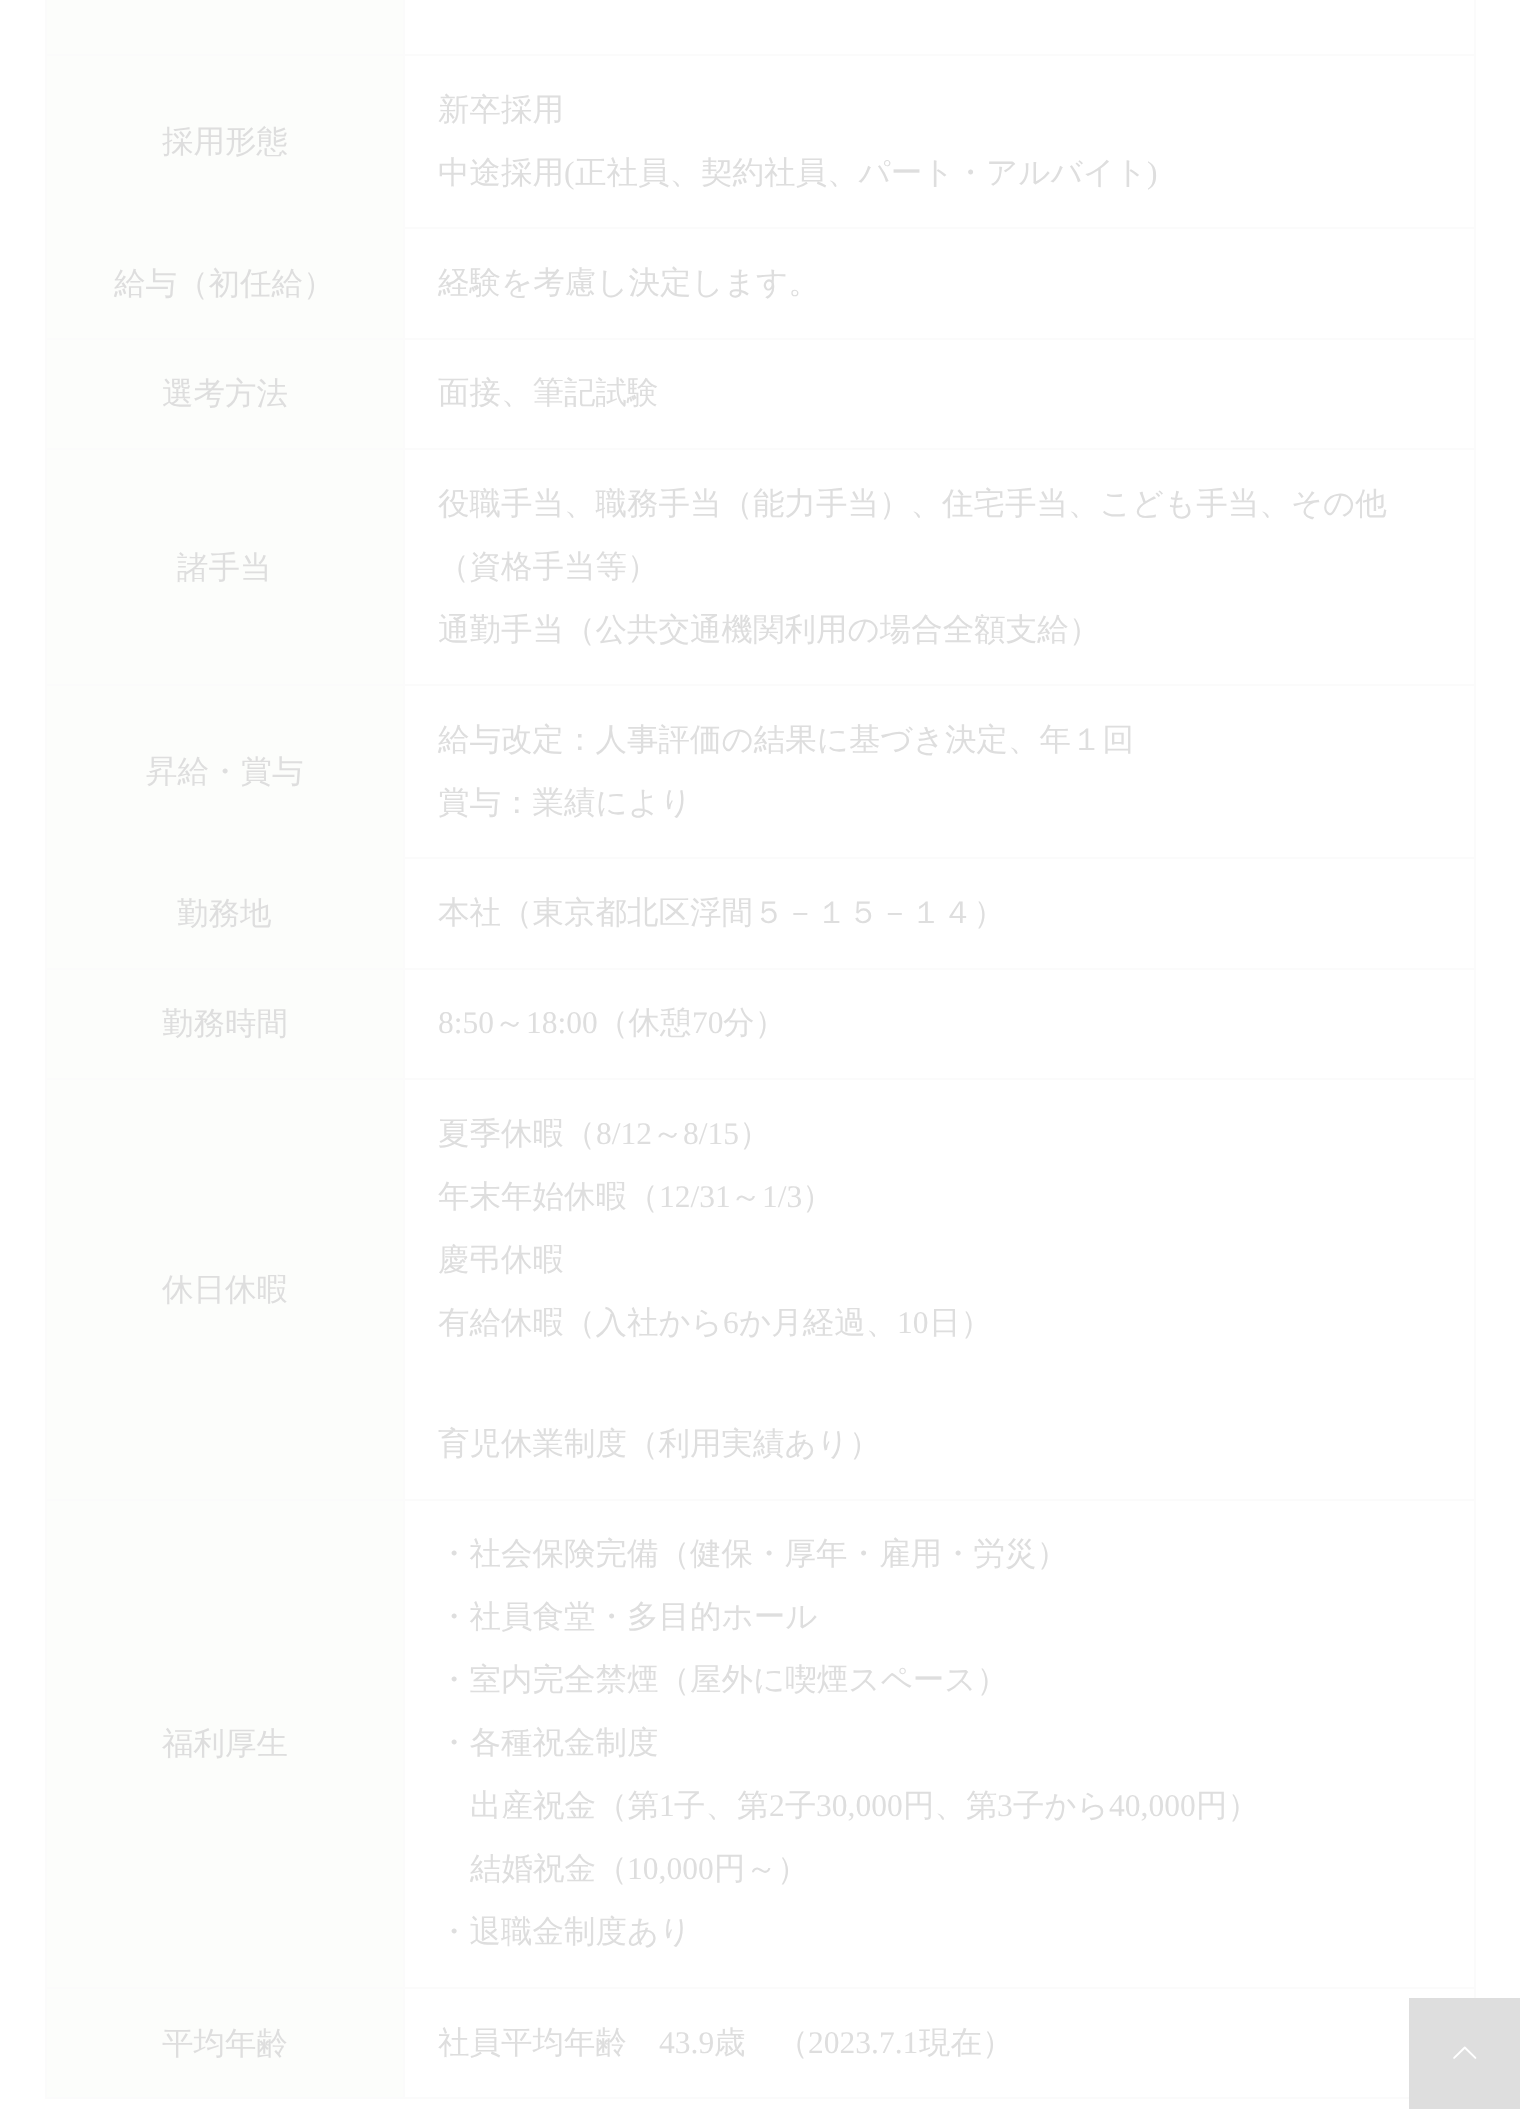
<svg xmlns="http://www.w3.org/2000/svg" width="1520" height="2109">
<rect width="100%" height="100%" fill="#fff"/>
<rect x="47" width="356" height="54" fill="#fcfdfb"/>
<rect x="403" y="54" width="1073" height="2" fill="#fbfbfb"/>
<rect x="403" y="227" width="1073" height="2" fill="#fbfbfb"/>
<rect x="403" y="338" width="1073" height="2" fill="#fbfbfb"/>
<rect x="403" y="448" width="1073" height="2" fill="#fbfbfb"/>
<rect x="403" y="684" width="1073" height="2" fill="#fbfbfb"/>
<rect x="403" y="857" width="1073" height="2" fill="#fbfbfb"/>
<rect x="403" y="968" width="1073" height="2" fill="#fbfbfb"/>
<rect x="403" y="1078" width="1073" height="2" fill="#fbfbfb"/>
<rect x="403" y="1499" width="1073" height="2" fill="#fbfbfb"/>
<rect x="403" y="1987" width="1073" height="2" fill="#fbfbfb"/>
<rect x="403" y="2097" width="1006" height="2" fill="#fbfbfb"/>
<rect x="403" y="1987" width="2" height="112" fill="#fbfbfb"/>
<rect x="45" y="1987" width="360" height="2" fill="#fbfbfb"/>
<rect x="403" y="1499" width="2" height="490" fill="#fbfbfb"/>
<rect x="45" y="1499" width="360" height="2" fill="#fbfbfb"/>
<rect x="403" y="1078" width="2" height="423" fill="#fbfbfb"/>
<rect x="45" y="1078" width="360" height="2" fill="#fbfbfb"/>
<rect x="403" y="968" width="2" height="112" fill="#fbfbfb"/>
<rect x="45" y="968" width="360" height="2" fill="#fbfbfb"/>
<rect x="403" y="857" width="2" height="113" fill="#fbfbfb"/>
<rect x="403" y="684" width="2" height="176" fill="#fbfbfb"/>
<rect x="45" y="684" width="360" height="2" fill="#fbfbfb"/>
<rect x="403" y="448" width="2" height="238" fill="#fbfbfb"/>
<rect x="45" y="448" width="360" height="2" fill="#fbfbfb"/>
<rect x="403" y="338" width="2" height="112" fill="#fbfbfb"/>
<rect x="45" y="338" width="360" height="2" fill="#fbfbfb"/>
<rect x="403" y="227" width="2" height="113" fill="#fbfbfb"/>
<rect x="403" y="54" width="2" height="176" fill="#fbfbfb"/>
<rect x="45" y="54" width="360" height="2" fill="#fbfbfb"/>
<rect x="403" width="2" height="56" fill="#fbfbfb"/>
<rect x="47" y="56" width="356" height="282" fill="#fcfdfb"/>
<rect x="45" y="2097" width="360" height="2" fill="#fbfbfb"/>
<rect x="45" y="1987" width="2" height="112" fill="#fbfbfb"/>
<rect x="45" y="1499" width="2" height="490" fill="#fbfbfb"/>
<rect x="45" y="1078" width="2" height="423" fill="#fbfbfb"/>
<rect x="45" y="968" width="2" height="112" fill="#fbfbfb"/>
<rect x="45" y="857" width="2" height="113" fill="#fbfbfb"/>
<rect x="45" y="684" width="2" height="176" fill="#fbfbfb"/>
<rect x="45" y="448" width="2" height="238" fill="#fbfbfb"/>
<rect x="45" y="338" width="2" height="112" fill="#fbfbfb"/>
<rect x="45" y="227" width="2" height="113" fill="#fbfbfb"/>
<rect x="45" width="2" height="230" fill="#fbfbfb"/>
<text x="162" y="152" style="font-family:WenQuanYi Zen Hei;font-size:31.5px;font-weight:500;fill:#dedede">採用形態</text>
<rect x="1474" y="1987" width="2" height="11" fill="#fbfbfb"/>
<rect x="1474" y="1499" width="2" height="490" fill="#fbfbfb"/>
<rect x="1474" y="1078" width="2" height="423" fill="#fbfbfb"/>
<rect x="1474" y="968" width="2" height="112" fill="#fbfbfb"/>
<rect x="1474" y="857" width="2" height="113" fill="#fbfbfb"/>
<rect x="1474" y="684" width="2" height="176" fill="#fbfbfb"/>
<rect x="1474" y="448" width="2" height="238" fill="#fbfbfb"/>
<rect x="1474" y="338" width="2" height="112" fill="#fbfbfb"/>
<rect x="1474" y="227" width="2" height="113" fill="#fbfbfb"/>
<rect x="1474" width="2" height="230" fill="#fbfbfb"/>
<text x="438" y="120" style="font-family:WenQuanYi Zen Hei;font-size:31.5px;font-weight:500;fill:#dedede">新卒採用</text>
<text x="438" y="183" style="font-family:WenQuanYi Zen Hei;font-size:31.5px;font-weight:500;fill:#dedede">中途採用</text>
<text x="564" y="183" style="font-family:Liberation Serif;font-size:31.5px;fill:#dedede">(</text>
<text x="575" y="183" style="font-family:WenQuanYi Zen Hei;font-size:31.5px;font-weight:500;fill:#dedede">正社員、契約社員、パート・アルバイト</text>
<text x="1147" y="183" style="font-family:Liberation Serif;font-size:31.5px;fill:#dedede">)</text>
<text x="114" y="294" style="font-family:WenQuanYi Zen Hei;font-size:31.5px;font-weight:500;fill:#dedede">給与（初任給）</text>
<text x="438" y="293" style="font-family:WenQuanYi Zen Hei;font-size:31.5px;font-weight:500;fill:#dedede">経験を考慮し決定します。</text>
<rect x="47" y="340" width="356" height="108" fill="#fcfdfb"/>
<text x="162" y="404" style="font-family:WenQuanYi Zen Hei;font-size:31.5px;font-weight:500;fill:#dedede">選考方法</text>
<text x="438" y="403" style="font-family:WenQuanYi Zen Hei;font-size:31.5px;font-weight:500;fill:#dedede">面接、筆記試験</text>
<rect x="47" y="450" width="356" height="234" fill="#fcfdfb"/>
<text x="177" y="578" style="font-family:WenQuanYi Zen Hei;font-size:31.5px;font-weight:500;fill:#dedede">諸手当</text>
<text x="438" y="514" style="font-family:WenQuanYi Zen Hei;font-size:31.5px;font-weight:500;fill:#dedede">役職手当、職務手当（能力手当）、住宅手当、こども手当、その他</text>
<text x="438" y="577" style="font-family:WenQuanYi Zen Hei;font-size:31.5px;font-weight:500;fill:#dedede">（資格手当等）</text>
<text x="438" y="640" style="font-family:WenQuanYi Zen Hei;font-size:31.5px;font-weight:500;fill:#dedede">通勤手当（公共交通機関利用の場合全額支給）</text>
<rect x="47" y="686" width="356" height="282" fill="#fcfdfb"/>
<text x="146" y="782" style="font-family:WenQuanYi Zen Hei;font-size:31.5px;font-weight:500;fill:#dedede">昇給・賞与</text>
<text x="438" y="750" style="font-family:WenQuanYi Zen Hei;font-size:31.5px;font-weight:500;fill:#dedede">給与改定：人事評価の結果に基づき決定、年１回</text>
<text x="438" y="813" style="font-family:WenQuanYi Zen Hei;font-size:31.5px;font-weight:500;fill:#dedede">賞与：業績により</text>
<text x="177" y="924" style="font-family:WenQuanYi Zen Hei;font-size:31.5px;font-weight:500;fill:#dedede">勤務地</text>
<text x="438" y="923" style="font-family:WenQuanYi Zen Hei;font-size:31.5px;font-weight:500;fill:#dedede">本社（東京都北区浮間５－１５－１４）</text>
<rect x="47" y="970" width="356" height="108" fill="#fcfdfb"/>
<text x="162" y="1034" style="font-family:WenQuanYi Zen Hei;font-size:31.5px;font-weight:500;fill:#dedede">勤務時間</text>
<text x="438" y="1033" style="font-family:Liberation Serif;font-size:31.5px;fill:#dedede">8:50</text>
<text x="494" y="1033" style="font-family:WenQuanYi Zen Hei;font-size:31.5px;font-weight:500;fill:#dedede">～</text>
<text x="526" y="1033" style="font-family:Liberation Serif;font-size:31.5px;fill:#dedede">18:00</text>
<text x="597" y="1033" style="font-family:WenQuanYi Zen Hei;font-size:31.5px;font-weight:500;fill:#dedede">（休憩</text>
<text x="692" y="1033" style="font-family:Liberation Serif;font-size:31.5px;fill:#dedede">70</text>
<text x="723" y="1033" style="font-family:WenQuanYi Zen Hei;font-size:31.5px;font-weight:500;fill:#dedede">分）</text>
<rect x="47" y="1080" width="356" height="419" fill="#fcfdfb"/>
<text x="162" y="1300" style="font-family:WenQuanYi Zen Hei;font-size:31.5px;font-weight:500;fill:#dedede">休日休暇</text>
<text x="438" y="1144" style="font-family:WenQuanYi Zen Hei;font-size:31.5px;font-weight:500;fill:#dedede">夏季休暇（</text>
<text x="596" y="1144" style="font-family:Liberation Serif;font-size:31.5px;fill:#dedede">8/12</text>
<text x="652" y="1144" style="font-family:WenQuanYi Zen Hei;font-size:31.5px;font-weight:500;fill:#dedede">～</text>
<text x="683" y="1144" style="font-family:Liberation Serif;font-size:31.5px;fill:#dedede">8/15</text>
<text x="739" y="1144" style="font-family:WenQuanYi Zen Hei;font-size:31.5px;font-weight:500;fill:#dedede">）</text>
<text x="438" y="1207" style="font-family:WenQuanYi Zen Hei;font-size:31.5px;font-weight:500;fill:#dedede">年末年始休暇（</text>
<text x="659" y="1207" style="font-family:Liberation Serif;font-size:31.5px;fill:#dedede">12/31</text>
<text x="730" y="1207" style="font-family:WenQuanYi Zen Hei;font-size:31.5px;font-weight:500;fill:#dedede">～</text>
<text x="762" y="1207" style="font-family:Liberation Serif;font-size:31.5px;fill:#dedede">1/3</text>
<text x="802" y="1207" style="font-family:WenQuanYi Zen Hei;font-size:31.5px;font-weight:500;fill:#dedede">）</text>
<text x="438" y="1270" style="font-family:WenQuanYi Zen Hei;font-size:31.5px;font-weight:500;fill:#dedede">慶弔休暇</text>
<text x="438" y="1333" style="font-family:WenQuanYi Zen Hei;font-size:31.5px;font-weight:500;fill:#dedede">有給休暇（入社から</text>
<text x="723" y="1333" style="font-family:Liberation Serif;font-size:31.5px;fill:#dedede">6</text>
<text x="739" y="1333" style="font-family:WenQuanYi Zen Hei;font-size:31.5px;font-weight:500;fill:#dedede">か月経過、</text>
<text x="897" y="1333" style="font-family:Liberation Serif;font-size:31.5px;fill:#dedede">10</text>
<text x="929" y="1333" style="font-family:WenQuanYi Zen Hei;font-size:31.5px;font-weight:500;fill:#dedede">日）</text>
<text x="438" y="1454" style="font-family:WenQuanYi Zen Hei;font-size:31.5px;font-weight:500;fill:#dedede">育児休業制度（利用実績あり）</text>
<rect x="47" y="1501" width="356" height="486" fill="#fcfdfb"/>
<text x="162" y="1754" style="font-family:WenQuanYi Zen Hei;font-size:31.5px;font-weight:500;fill:#dedede">福利厚生</text>
<text x="438" y="1564" style="font-family:WenQuanYi Zen Hei;font-size:31.5px;font-weight:500;fill:#dedede">・社会保険完備（健保・厚年・雇用・労災）</text>
<text x="438" y="1627" style="font-family:WenQuanYi Zen Hei;font-size:31.5px;font-weight:500;fill:#dedede">・社員食堂・多目的ホール</text>
<text x="438" y="1690" style="font-family:WenQuanYi Zen Hei;font-size:31.5px;font-weight:500;fill:#dedede">・室内完全禁煙（屋外に喫煙スペース）</text>
<text x="438" y="1753" style="font-family:WenQuanYi Zen Hei;font-size:31.5px;font-weight:500;fill:#dedede">・各種祝金制度</text>
<text x="470" y="1816" style="font-family:WenQuanYi Zen Hei;font-size:31.5px;font-weight:500;fill:#dedede">出産祝金（第</text>
<text x="659" y="1816" style="font-family:Liberation Serif;font-size:31.5px;fill:#dedede">1</text>
<text x="674" y="1816" style="font-family:WenQuanYi Zen Hei;font-size:31.5px;font-weight:500;fill:#dedede">子、第</text>
<text x="769" y="1816" style="font-family:Liberation Serif;font-size:31.5px;fill:#dedede">2</text>
<text x="785" y="1816" style="font-family:WenQuanYi Zen Hei;font-size:31.5px;font-weight:500;fill:#dedede">子</text>
<text x="816" y="1816" style="font-family:Liberation Serif;font-size:31.5px;fill:#dedede">30,000</text>
<text x="903" y="1816" style="font-family:WenQuanYi Zen Hei;font-size:31.5px;font-weight:500;fill:#dedede">円、第</text>
<text x="997" y="1816" style="font-family:Liberation Serif;font-size:31.5px;fill:#dedede">3</text>
<text x="1013" y="1816" style="font-family:WenQuanYi Zen Hei;font-size:31.5px;font-weight:500;fill:#dedede">子から</text>
<text x="1109" y="1816" style="font-family:Liberation Serif;font-size:31.5px;fill:#dedede">40,000</text>
<text x="1196" y="1816" style="font-family:WenQuanYi Zen Hei;font-size:31.5px;font-weight:500;fill:#dedede">円）</text>
<text x="470" y="1879" style="font-family:WenQuanYi Zen Hei;font-size:31.5px;font-weight:500;fill:#dedede">結婚祝金（</text>
<text x="627" y="1879" style="font-family:Liberation Serif;font-size:31.5px;fill:#dedede">10,000</text>
<text x="714" y="1879" style="font-family:WenQuanYi Zen Hei;font-size:31.5px;font-weight:500;fill:#dedede">円～）</text>
<text x="438" y="1942" style="font-family:WenQuanYi Zen Hei;font-size:31.5px;font-weight:500;fill:#dedede">・退職金制度あり</text>
<rect x="47" y="1989" width="356" height="108" fill="#fcfdfb"/>
<text x="162" y="2054" style="font-family:WenQuanYi Zen Hei;font-size:31.5px;font-weight:500;fill:#dedede">平均年齢</text>
<text x="438" y="2053" style="font-family:WenQuanYi Zen Hei;font-size:31.5px;font-weight:500;fill:#dedede">社員平均年齢</text>
<text x="659" y="2053" style="font-family:Liberation Serif;font-size:31.5px;fill:#dedede">43.9</text>
<text x="714" y="2053" style="font-family:WenQuanYi Zen Hei;font-size:31.5px;font-weight:500;fill:#dedede">歳　（</text>
<text x="808" y="2053" style="font-family:Liberation Serif;font-size:31.5px;fill:#dedede">2023.7.1</text>
<text x="919" y="2053" style="font-family:WenQuanYi Zen Hei;font-size:31.5px;font-weight:500;fill:#dedede">現在）</text>
<rect x="1409" y="1998" width="111" height="111" fill="#dedede"/>
<image x="1453" y="2046" width="24" height="13" href="media/1.png"/>
</svg>
